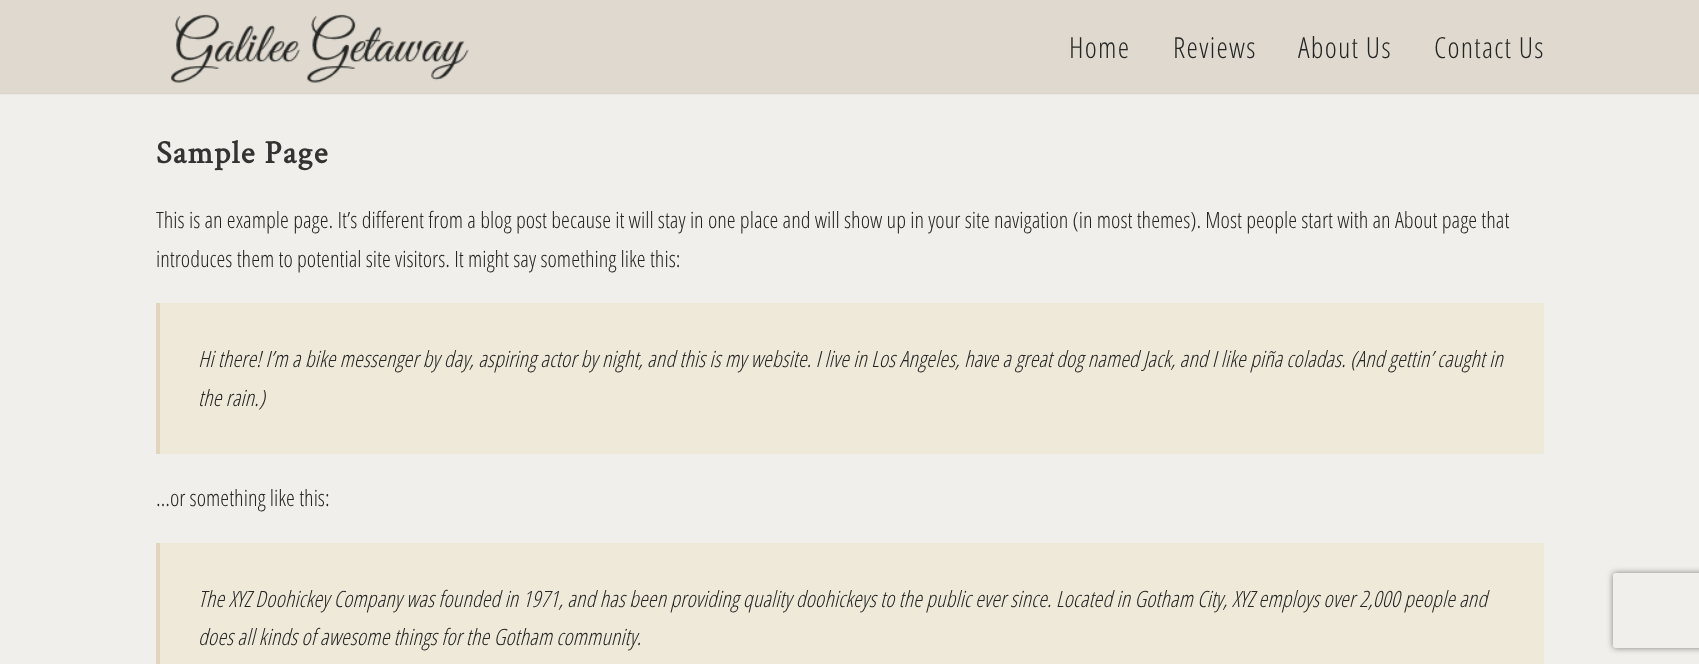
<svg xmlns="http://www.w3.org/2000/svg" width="1699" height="664">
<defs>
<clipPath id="clip1"><path d="M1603 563h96v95h-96zm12.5 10h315c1.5 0 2.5 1 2.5 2.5v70c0 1.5-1 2.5-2.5 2.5h-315c-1.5 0-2.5-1-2.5-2.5v-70c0-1.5 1-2.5 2.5-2.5z" clip-rule="evenodd"/></clipPath>
</defs>
<rect width="100%" height="100%" fill="#dfd9d0"/>
<image x="170" y="14" width="299" height="69" href="media/1.png"/>
<text x="1069" y="58" style="font-family:Open Sans Condensed;font-size:29px;font-weight:300;letter-spacing:1.25px;fill:#252624">Home</text>
<text x="1173" y="58" style="font-family:Open Sans Condensed;font-size:29px;font-weight:300;letter-spacing:1.25px;fill:#252624">Reviews</text>
<text x="1298" y="58" style="font-family:Open Sans Condensed;font-size:29px;font-weight:300;letter-spacing:1.25px;fill:#252624">About Us</text>
<text x="1434" y="58" style="font-family:Open Sans Condensed;font-size:29px;font-weight:300;letter-spacing:1.25px;fill:#252624">Contact Us</text>
<rect y="95" width="1699" height="569" fill="#f0efeb"/>
<rect y="93" width="1699" height="1" fill="#dbd5cb"/>
<rect y="94" width="1699" height="1" fill="#e9e9e9"/>
<text x="156" y="163" style="font-family:Crimson Text;font-size:32.5px;font-weight:bold;letter-spacing:1.25px;fill:#333">Sample Page</text>
<text x="156" y="228" style="font-family:Open Sans Condensed;font-size:22.5px;font-weight:300;fill:#252624">This is an example page. It’s different from a blog post because it will stay in one place and will show up in your site navigation (in most themes). Most people start with an About page that</text>
<text x="156" y="267" style="font-family:Open Sans Condensed;font-size:22.5px;font-weight:300;fill:#252624">introduces them to potential site visitors. It might say something like this:</text>
<rect x="160" y="303" width="1384" height="151" fill="#efe9da"/>
<rect x="156" y="303" width="4" height="151" fill="#e1d5bb"/>
<text x="198" y="367" style="font-family:Open Sans Condensed;font-size:22.5px;font-weight:300;font-style:italic;fill:#252624">Hi there! I’m a bike messenger by day, aspiring actor by night, and this is my website. I live in Los Angeles, have a great dog named Jack, and I like piña coladas. (And gettin’ caught in</text>
<text x="198" y="406" style="font-family:Open Sans Condensed;font-size:22.5px;font-weight:300;font-style:italic;fill:#252624">the rain.)</text>
<text x="156" y="506" style="font-family:Open Sans Condensed;font-size:22.5px;font-weight:300;fill:#252624">…or something like this:</text>
<rect x="160" y="543" width="1384" height="121" fill="#efe9da"/>
<rect x="156" y="543" width="4" height="121" fill="#e1d5bb"/>
<text x="198" y="607" style="font-family:Open Sans Condensed;font-size:22.5px;font-weight:300;font-style:italic;fill:#252624">The XYZ Doohickey Company was founded in 1971, and has been providing quality doohickeys to the public ever since. Located in Gotham City, XYZ employs over 2,000 people and</text>
<text x="198" y="645" style="font-family:Open Sans Condensed;font-size:22.5px;font-weight:300;font-style:italic;fill:#252624">does all kinds of awesome things for the Gotham community.</text>
<g clip-path="url(#clip1)">
<rect x="1613" y="573" width="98" height="75" rx="2.5" fill="#808080" filter="blur(3px)"/>
</g>
</svg>
